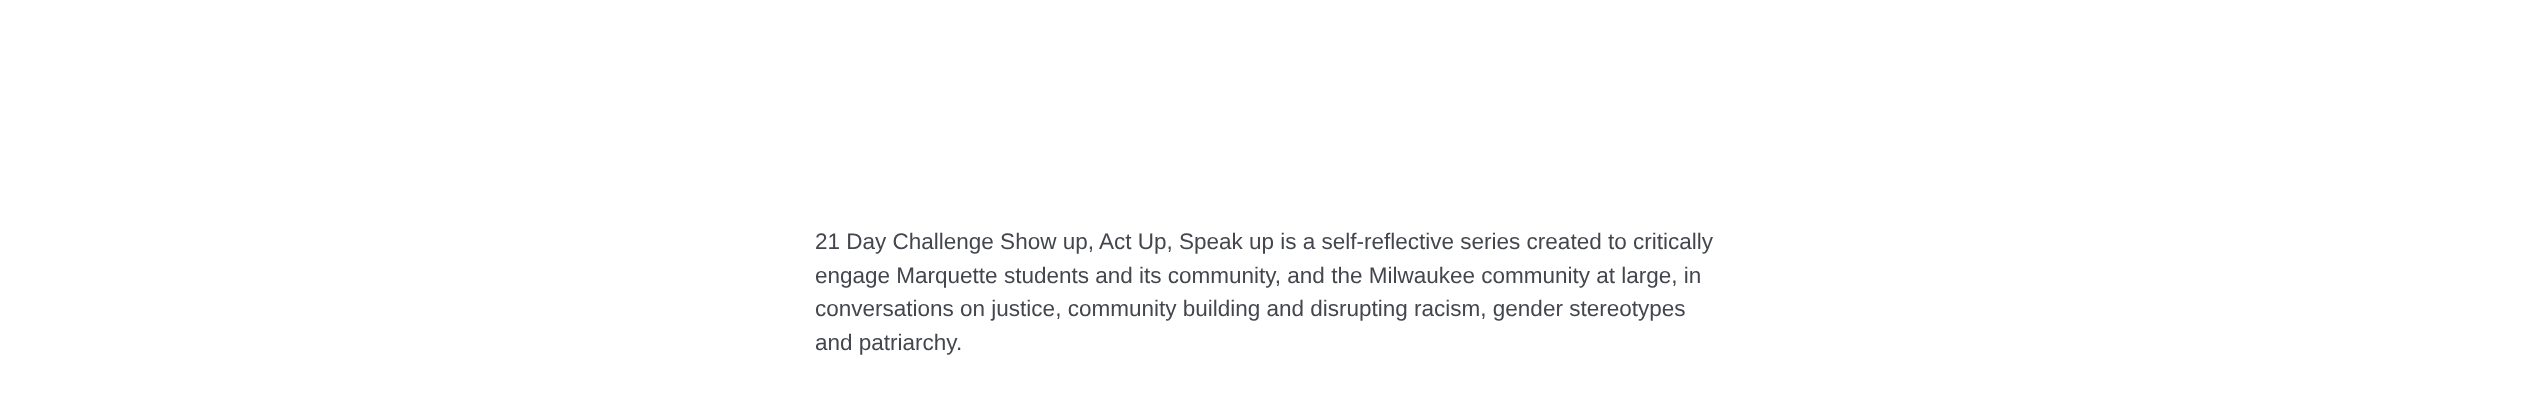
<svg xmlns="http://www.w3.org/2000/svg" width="2542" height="411">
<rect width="100%" height="100%" fill="#fff"/>
<text x="815" y="249" style="font-family:Liberation Sans;font-size:22.5px;fill:#43464d">21 Day Challenge Show up, Act Up, Speak up is a self-reflective series created to critically</text>
<text x="815" y="283" style="font-family:Liberation Sans;font-size:22.5px;fill:#43464d">engage Marquette students and its community, and the Milwaukee community at large, in</text>
<text x="815" y="316" style="font-family:Liberation Sans;font-size:22.5px;fill:#43464d">conversations on justice, community building and disrupting racism, gender stereotypes</text>
<text x="815" y="350" style="font-family:Liberation Sans;font-size:22.5px;fill:#43464d">and patriarchy.</text>
</svg>
